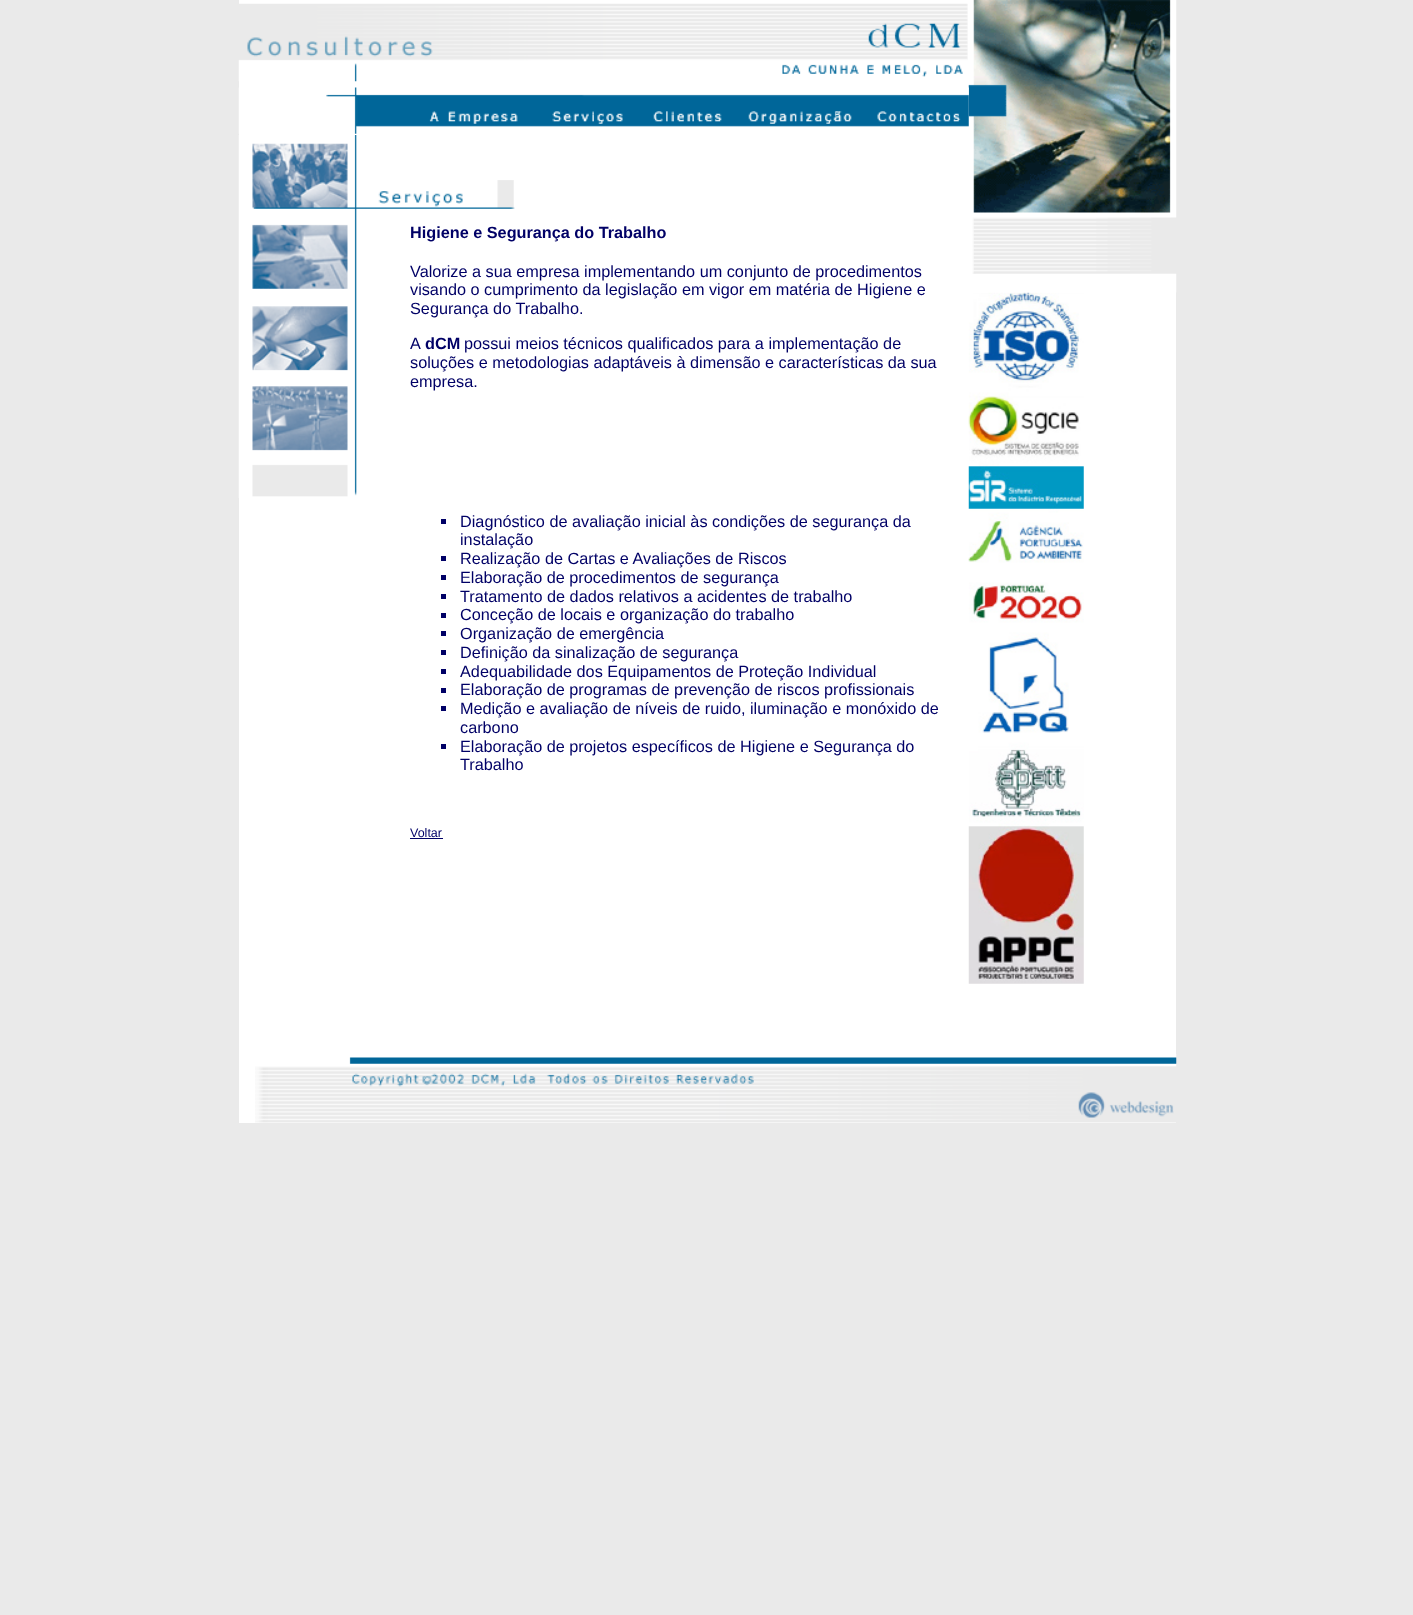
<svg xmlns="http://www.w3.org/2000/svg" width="1413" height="1615">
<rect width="100%" height="100%" fill="#eaeaea"/>
<rect x="239" width="937" height="1123" fill="#fff"/>
<image x="238" y="3" width="730" height="79" href="media/1.png"/>
<image x="968" y="292" width="116" height="692" href="media/3.png"/>
<image x="968" y="0" width="209" height="293" href="media/2.png"/>
<image x="238" y="87" width="731" height="47" href="media/4.png"/>
<image x="238" y="135" width="122" height="363" href="media/5.png"/>
<image x="360" y="180" width="155" height="29" href="media/6.png"/>
<text x="410" y="238" style="font-family:Liberation Sans;font-size:16.25px;font-weight:bold;fill:#006">Higiene e Segurança do Trabalho</text>
<text x="410" y="277" style="font-family:Liberation Sans;font-size:16.25px;fill:#006">Valorize a sua empresa implementando um conjunto de procedimentos</text>
<text x="410" y="295" style="font-family:Liberation Sans;font-size:16.25px;fill:#006">visando o cumprimento da legislação em vigor em matéria de Higiene e</text>
<text x="410" y="314" style="font-family:Liberation Sans;font-size:16.25px;fill:#006">Segurança do Trabalho.</text>
<text x="410" y="349" style="font-family:Liberation Sans;font-size:16.25px;fill:#006">A</text>
<text x="425" y="349" style="font-family:Liberation Sans;font-size:16.25px;font-weight:bold;fill:#006">dCM</text>
<text x="464" y="349" style="font-family:Liberation Sans;font-size:16.25px;fill:#006">possui meios técnicos qualificados para a implementação de</text>
<text x="410" y="368" style="font-family:Liberation Sans;font-size:16.25px;fill:#006">soluções e metodologias adaptáveis à dimensão e características da sua</text>
<text x="410" y="387" style="font-family:Liberation Sans;font-size:16.25px;fill:#006">empresa.</text>
<rect x="441" y="519" width="5" height="5" fill="#006"/>
<text x="460" y="527" style="font-family:Liberation Sans;font-size:16.25px;fill:#006">Diagnóstico de avaliação inicial às condições de segurança da</text>
<text x="460" y="545" style="font-family:Liberation Sans;font-size:16.25px;fill:#006">instalação</text>
<rect x="441" y="556" width="5" height="5" fill="#006"/>
<text x="460" y="564" style="font-family:Liberation Sans;font-size:16.25px;fill:#006">Realização de Cartas e Avaliações de Riscos</text>
<rect x="441" y="575" width="5" height="5" fill="#006"/>
<text x="460" y="583" style="font-family:Liberation Sans;font-size:16.25px;fill:#006">Elaboração de procedimentos de segurança</text>
<rect x="441" y="594" width="5" height="5" fill="#006"/>
<text x="460" y="602" style="font-family:Liberation Sans;font-size:16.25px;fill:#006">Tratamento de dados relativos a acidentes de trabalho</text>
<rect x="441" y="613" width="5" height="5" fill="#006"/>
<text x="460" y="620" style="font-family:Liberation Sans;font-size:16.25px;fill:#006">Conceção de locais e organização do trabalho</text>
<rect x="441" y="631" width="5" height="5" fill="#006"/>
<text x="460" y="639" style="font-family:Liberation Sans;font-size:16.25px;fill:#006">Organização de emergência</text>
<rect x="441" y="650" width="5" height="5" fill="#006"/>
<text x="460" y="658" style="font-family:Liberation Sans;font-size:16.25px;fill:#006">Definição da sinalização de segurança</text>
<rect x="441" y="669" width="5" height="5" fill="#006"/>
<text x="460" y="677" style="font-family:Liberation Sans;font-size:16.25px;fill:#006">Adequabilidade dos Equipamentos de Proteção Individual</text>
<rect x="441" y="688" width="5" height="5" fill="#006"/>
<text x="460" y="695" style="font-family:Liberation Sans;font-size:16.25px;fill:#006">Elaboração de programas de prevenção de riscos profissionais</text>
<rect x="441" y="706" width="5" height="5" fill="#006"/>
<text x="460" y="714" style="font-family:Liberation Sans;font-size:16.25px;fill:#006">Medição e avaliação de níveis de ruido, iluminação e monóxido de</text>
<text x="460" y="733" style="font-family:Liberation Sans;font-size:16.25px;fill:#006">carbono</text>
<rect x="441" y="744" width="5" height="5" fill="#006"/>
<text x="460" y="752" style="font-family:Liberation Sans;font-size:16.25px;fill:#006">Elaboração de projetos específicos de Higiene e Segurança do</text>
<text x="460" y="770" style="font-family:Liberation Sans;font-size:16.25px;fill:#006">Trabalho</text>
<text x="410" y="837" style="font-family:Liberation Sans;font-size:12.5px;fill:#006">Voltar</text>
<rect x="410" y="838" width="33" height="1" fill="#006"/>
<image x="255" y="1054" width="922" height="69" href="media/7.png"/>
</svg>
